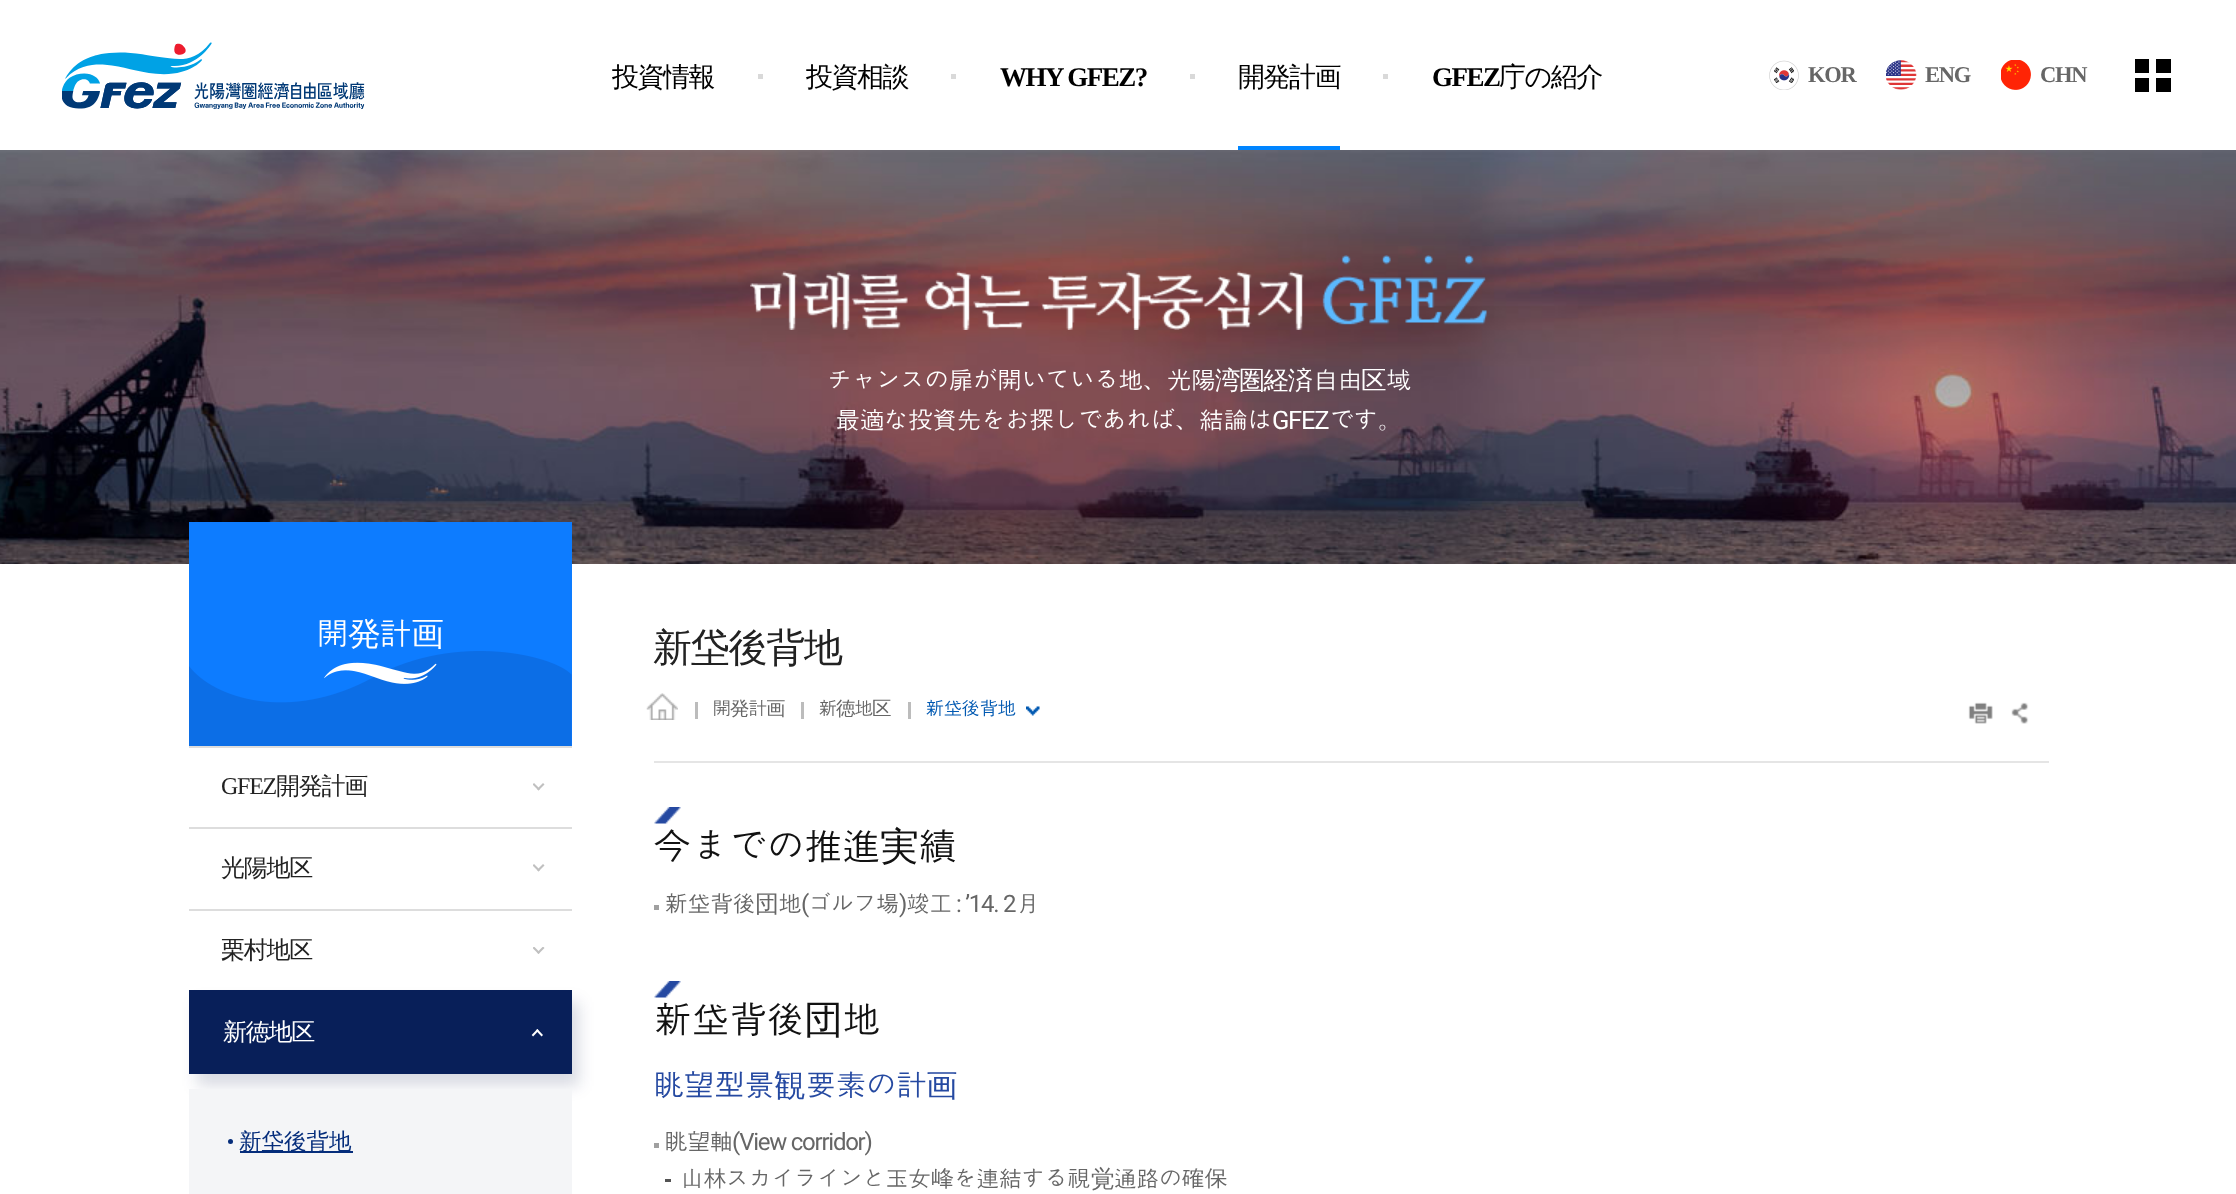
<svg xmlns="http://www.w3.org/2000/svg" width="2236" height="1194">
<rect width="100%" height="100%" fill="#fff"/>
<text x="612" y="86" style="font-family:WenQuanYi Zen Hei;font-size:27px;font-weight:500;letter-spacing:-1.5px;fill:#000">投資情報</text>
<rect x="758" y="74" width="5" height="5" fill="#d9d9d9"/>
<text x="806" y="86" style="font-family:WenQuanYi Zen Hei;font-size:27px;font-weight:500;letter-spacing:-1.5px;fill:#000">投資相談</text>
<rect x="951" y="74" width="5" height="5" fill="#d9d9d9"/>
<text x="1000" y="86" style="font-family:Liberation Serif;font-size:27px;font-weight:bold;letter-spacing:-1.5px;fill:#000">WHY GFEZ?</text>
<rect x="1190" y="74" width="5" height="5" fill="#d9d9d9"/>
<text x="1238" y="86" style="font-family:WenQuanYi Zen Hei;font-size:27px;font-weight:500;letter-spacing:-1.5px;fill:#000">開発計画</text>
<rect x="1238" y="146" width="102" height="4" fill="#0085ff"/>
<rect x="1383" y="74" width="5" height="5" fill="#d9d9d9"/>
<text x="1432" y="86" style="font-family:Liberation Serif;font-size:27px;font-weight:bold;letter-spacing:-1.5px;fill:#000">GFEZ</text>
<text x="1499" y="86" style="font-family:WenQuanYi Zen Hei;font-size:27px;font-weight:500;letter-spacing:-1.5px;fill:#000">庁の紹介</text>
<image x="62" y="42" width="303" height="68" href="media/1.png"/>
<image x="1769" y="60" width="30" height="30" href="media/2.png"/>
<text x="1808" y="82" style="font-family:Liberation Serif;font-size:22.5px;font-weight:bold;letter-spacing:-1.25px;fill:#666">KOR</text>
<image x="1886" y="60" width="31" height="30" href="media/3.png"/>
<text x="1925" y="82" style="font-family:Liberation Serif;font-size:22.5px;font-weight:bold;letter-spacing:-1.25px;fill:#666">ENG</text>
<image x="2001" y="60" width="30" height="30" href="media/4.png"/>
<text x="2040" y="82" style="font-family:Liberation Serif;font-size:22.5px;font-weight:bold;letter-spacing:-1.25px;fill:#666">CHN</text>
<rect x="2135" y="59" width="14" height="14" fill="#000"/>
<rect x="2135" y="78" width="14" height="14" fill="#000"/>
<rect x="2156" y="59" width="15" height="14" fill="#000"/>
<rect x="2156" y="78" width="15" height="14" fill="#000"/>
<image x="0" y="150" width="2236" height="414" href="media/5.png"/>
<image x="750" y="255" width="737" height="75" href="media/6.png"/>
<text x="827" y="389" style="font-family:Dotum;font-size:25.5px;letter-spacing:-1.25px;fill:#fff">チャンスの扉が開いている地、光陽</text>
<text x="1215" y="389" style="font-family:WenQuanYi Zen Hei;font-size:25.5px;font-weight:500;letter-spacing:-1.25px;fill:#fff">湾圏経済</text>
<text x="1313" y="389" style="font-family:Dotum;font-size:25.5px;letter-spacing:-1.25px;fill:#fff">自由</text>
<text x="1361" y="389" style="font-family:WenQuanYi Zen Hei;font-size:25.5px;font-weight:500;letter-spacing:-1.25px;fill:#fff">区</text>
<text x="1386" y="389" style="font-family:Dotum;font-size:25.5px;letter-spacing:-1.25px;fill:#fff">域</text>
<text x="835" y="429" style="font-family:Dotum;font-size:25.5px;letter-spacing:-1.25px;fill:#fff">最適な投資先をお探しであれば、結論は</text>
<text x="1272" y="429" style="font-family:Roboto;font-size:25.5px;letter-spacing:-1.25px;fill:#fff">GFEZ</text>
<text x="1329" y="429" style="font-family:Dotum;font-size:25.5px;letter-spacing:-1.25px;fill:#fff">です。</text>
<rect x="189" y="522" width="383" height="224" fill="#0d7cff"/>
<image x="189" y="651" width="383" height="95" href="media/7.png"/>
<text x="316" y="645" style="font-family:Dotum;font-size:33px;letter-spacing:-1.25px;fill:#fff">開</text>
<text x="348" y="645" style="font-family:WenQuanYi Zen Hei;font-size:33px;font-weight:500;letter-spacing:-1.25px;fill:#fff">発</text>
<text x="379" y="645" style="font-family:Dotum;font-size:33px;letter-spacing:-1.25px;fill:#fff">計</text>
<text x="411" y="645" style="font-family:WenQuanYi Zen Hei;font-size:33px;font-weight:500;letter-spacing:-1.25px;fill:#fff">画</text>
<rect x="189" y="746" width="383" height="2" fill="#ddd"/>
<rect x="189" y="827" width="383" height="2" fill="#ddd"/>
<text x="221" y="794" style="font-family:Liberation Serif;font-size:24px;letter-spacing:-1.25px;fill:#222">GFEZ</text>
<text x="276" y="794" style="font-family:WenQuanYi Zen Hei;font-size:24px;font-weight:500;letter-spacing:-1.25px;fill:#222">開発計画</text>
<image x="533" y="783" width="12" height="8" href="media/8.png"/>
<rect x="189" y="909" width="383" height="2" fill="#ddd"/>
<text x="221" y="876" style="font-family:WenQuanYi Zen Hei;font-size:24px;font-weight:500;letter-spacing:-1.25px;fill:#222">光陽地区</text>
<image x="533" y="864" width="12" height="8" href="media/8.png"/>
<text x="221" y="958" style="font-family:WenQuanYi Zen Hei;font-size:24px;font-weight:500;letter-spacing:-1.25px;fill:#222">栗村地区</text>
<image x="533" y="947" width="12" height="7" href="media/9.png"/>
<rect x="197" y="1002" width="382" height="84" fill="#000e4026" filter="blur(7.5px)"/>
<rect x="189" y="990" width="383" height="84" fill="#081f59"/>
<text x="223" y="1040" style="font-family:WenQuanYi Zen Hei;font-size:24px;font-weight:500;letter-spacing:-1.25px;fill:#fff">新徳地区</text>
<image x="531" y="1029" width="12" height="8" href="media/10.png"/>
<rect x="189" y="1089" width="383" height="105" fill="#f4f5f7"/>
<circle cx="230.5" cy="1141.5" r="2.5" fill="#052d7b"/>
<rect x="240" y="1151" width="113" height="2" fill="#052d7b"/>
<text x="239" y="1149" style="font-family:WenQuanYi Zen Hei;font-size:22.5px;font-weight:500;fill:#052d7b">新垈後背地</text>
<rect x="654" y="761" width="1395" height="2" fill="#e5e5e5"/>
<text x="653" y="661" style="font-family:WenQuanYi Zen Hei;font-size:39px;font-weight:500;letter-spacing:-1.25px;fill:#222">新垈後背地</text>
<image x="646" y="693" width="32" height="27" href="media/11.png"/>
<rect x="695" y="702" width="3" height="17" fill="#bcbcbc"/>
<text x="712" y="715" style="font-family:Dotum;font-size:19.5px;letter-spacing:-1.5px;fill:#666">開</text>
<text x="730" y="715" style="font-family:WenQuanYi Zen Hei;font-size:19.5px;font-weight:500;letter-spacing:-1.5px;fill:#666">発</text>
<text x="748" y="715" style="font-family:Dotum;font-size:19.5px;letter-spacing:-1.5px;fill:#666">計</text>
<text x="766" y="715" style="font-family:WenQuanYi Zen Hei;font-size:19.5px;font-weight:500;letter-spacing:-1.5px;fill:#666">画</text>
<rect x="801" y="702" width="3" height="17" fill="#bcbcbc"/>
<text x="818" y="715" style="font-family:Dotum;font-size:19.5px;letter-spacing:-1.5px;fill:#666">新</text>
<text x="836" y="715" style="font-family:WenQuanYi Zen Hei;font-size:19.5px;font-weight:500;letter-spacing:-1.5px;fill:#666">徳</text>
<text x="854" y="715" style="font-family:Dotum;font-size:19.5px;letter-spacing:-1.5px;fill:#666">地</text>
<text x="872" y="715" style="font-family:WenQuanYi Zen Hei;font-size:19.5px;font-weight:500;letter-spacing:-1.5px;fill:#666">区</text>
<rect x="908" y="702" width="3" height="17" fill="#bcbcbc"/>
<text x="925" y="715" style="font-family:Dotum;font-size:19.5px;letter-spacing:-1.5px;fill:#0159b2">新垈後背地</text>
<image x="1026" y="706" width="14" height="10" href="media/12.png"/>
<image x="1968" y="702" width="25" height="22" href="media/13.png"/>
<image x="2011" y="702" width="18" height="22" href="media/14.png"/>
<image x="654" y="807" width="27" height="17" href="media/15.png"/>
<text x="653" y="860" style="font-family:Dotum;font-size:39px;letter-spacing:-1.25px;fill:#121212">今までの推進</text>
<text x="880" y="860" style="font-family:WenQuanYi Zen Hei;font-size:39px;font-weight:500;letter-spacing:-1.25px;fill:#121212">実</text>
<text x="918" y="860" style="font-family:Dotum;font-size:39px;letter-spacing:-1.25px;fill:#121212">績</text>
<text x="778" y="912" style="font-family:Dotum;font-size:24px;letter-spacing:-1.25px;fill:#666">地 ゴルフ場</text>
<rect x="654" y="905" width="5" height="5" fill="#a0a0a0"/>
<text x="664" y="912" style="font-family:Dotum;font-size:24px;letter-spacing:-1.25px;fill:#666">新垈背後</text>
<text x="755" y="912" style="font-family:WenQuanYi Zen Hei;font-size:24px;font-weight:500;letter-spacing:-1.25px;fill:#666">団</text>
<text x="801" y="912" style="font-family:Roboto;font-size:24px;letter-spacing:-1.25px;fill:#666">(</text>
<text x="899" y="912" style="font-family:Roboto;font-size:24px;letter-spacing:-1.25px;fill:#666">)</text>
<text x="906" y="912" style="font-family:Dotum;font-size:24px;letter-spacing:-1.25px;fill:#666">竣工</text>
<text x="956" y="912" style="font-family:Roboto;font-size:24px;letter-spacing:-1.25px;fill:#666">: ’14. 2</text>
<text x="1016" y="912" style="font-family:Dotum;font-size:24px;letter-spacing:-1.25px;fill:#666">月</text>
<image x="654" y="981" width="27" height="17" href="media/15.png"/>
<text x="653" y="1033" style="font-family:Dotum;font-size:39px;letter-spacing:-1.25px;fill:#121212">新垈背後</text>
<text x="804" y="1033" style="font-family:WenQuanYi Zen Hei;font-size:39px;font-weight:500;letter-spacing:-1.25px;fill:#121212">団</text>
<text x="842" y="1033" style="font-family:Dotum;font-size:39px;letter-spacing:-1.25px;fill:#121212">地</text>
<text x="653" y="1096" style="font-family:Dotum;font-size:31.5px;letter-spacing:-1.25px;fill:#2549a1">眺望型景</text>
<text x="774" y="1096" style="font-family:WenQuanYi Zen Hei;font-size:31.5px;font-weight:500;letter-spacing:-1.25px;fill:#2549a1">観</text>
<text x="805" y="1096" style="font-family:Dotum;font-size:31.5px;letter-spacing:-1.25px;fill:#2549a1">要素の計</text>
<text x="926" y="1096" style="font-family:WenQuanYi Zen Hei;font-size:31.5px;font-weight:500;letter-spacing:-1.25px;fill:#2549a1">画</text>
<rect x="654" y="1143" width="5" height="5" fill="#a0a0a0"/>
<text x="664" y="1150" style="font-family:Dotum;font-size:24px;letter-spacing:-1.25px;fill:#666">眺望軸</text>
<text x="732" y="1150" style="font-family:Roboto;font-size:24px;letter-spacing:-1.25px;fill:#666">(View corridor)</text>
<rect x="665" y="1179" width="6" height="3" fill="#545454"/>
<text x="680" y="1187" style="font-family:Dotum;font-size:24px;letter-spacing:-1.25px;fill:#666">山林スカイラインと玉女峰を連結する視</text>
<text x="1091" y="1187" style="font-family:WenQuanYi Zen Hei;font-size:24px;font-weight:500;letter-spacing:-1.25px;fill:#666">覚</text>
<text x="1113" y="1187" style="font-family:Dotum;font-size:24px;letter-spacing:-1.25px;fill:#666">通路の確保</text>
</svg>
